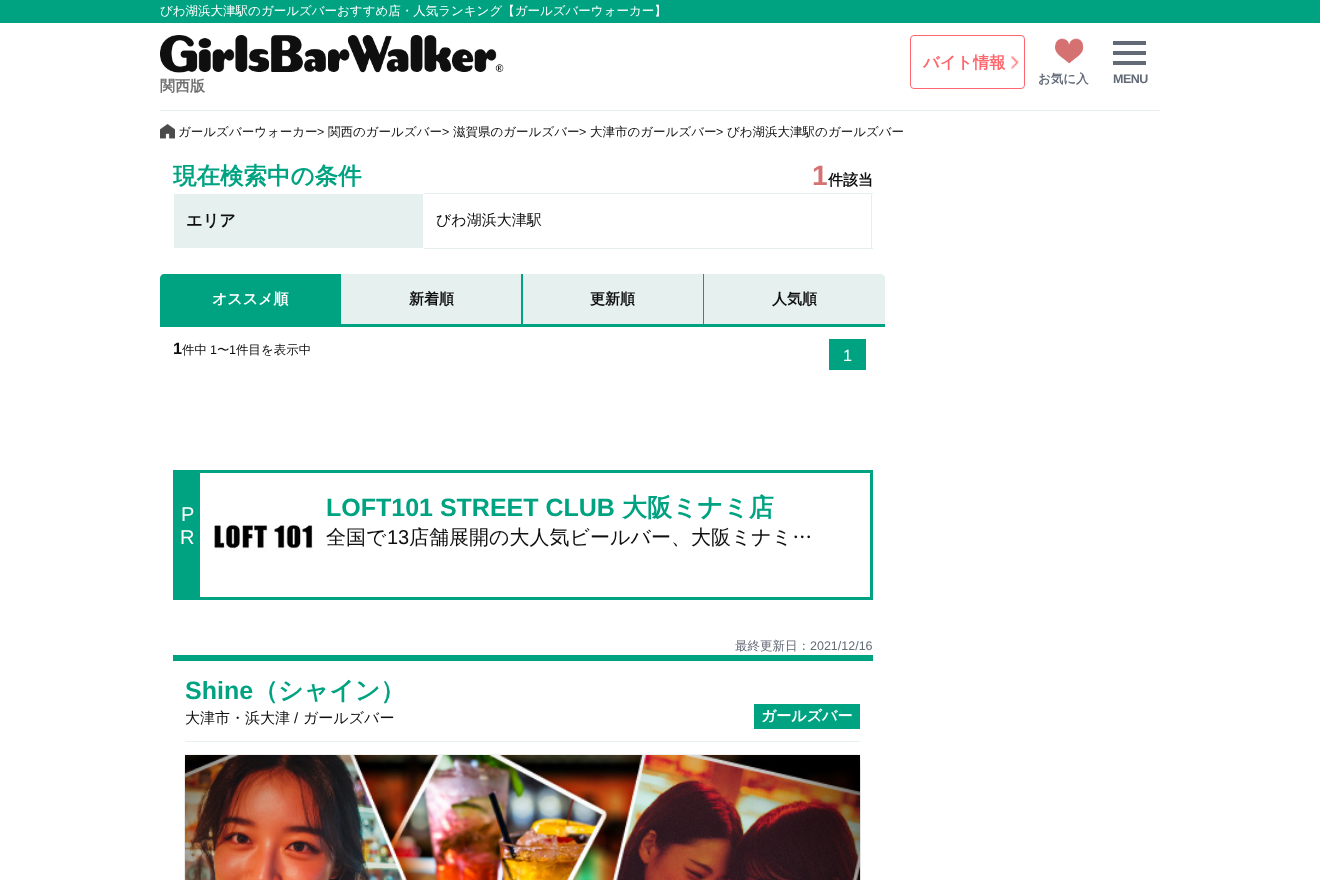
<svg xmlns="http://www.w3.org/2000/svg" width="1320" height="880">
<defs>
<clipPath id="clip1"><rect x="173" y="160" width="700" height="33"/></clipPath>
</defs>
<rect width="100%" height="100%" fill="#fff"/>
<rect width="1320" height="23" fill="#00a381"/>
<text x="160" y="15" style="font-family:WenQuanYi Zen Hei;font-size:12.5px;font-weight:500;fill:#fff">びわ湖浜大津駅のガールズバーおすすめ店・人気ランキング【ガールズバーウォーカー】</text>
<rect x="160" y="110" width="1000" height="1" fill="#e6f1ef"/>
<image x="160" y="35" width="344" height="38" href="media/1.png"/>
<text x="160" y="91" style="font-family:WenQuanYi Zen Hei;font-size:15px;font-weight:bold;fill:#707070">関西版</text>
<rect x="910.5" y="35.5" width="114" height="53" rx="3.5" fill="none" stroke="#fe676e"/>
<image x="1011" y="56" width="8" height="13" href="media/2.png"/>
<text x="923" y="68" style="font-family:WenQuanYi Zen Hei;font-size:16.25px;font-weight:bold;fill:#fe676e">バイト情報</text>
<image x="1055" y="38" width="29" height="26" href="media/3.png"/>
<text x="1038" y="83" style="font-family:WenQuanYi Zen Hei;font-size:12.5px;font-weight:bold;fill:#636a77">お気に入</text>
<rect x="1113" y="41" width="33" height="4" fill="#636a77"/>
<rect x="1113" y="51" width="33" height="4" fill="#636a77"/>
<rect x="1113" y="61" width="33" height="4" fill="#636a77"/>
<text x="1113" y="83" style="font-family:Liberation Sans;font-size:12.5px;font-weight:bold;letter-spacing:-0.5px;fill:#636a77">MENU</text>
<image x="160" y="123" width="15" height="16" href="media/4.png"/>
<text x="178" y="136" style="font-family:WenQuanYi Zen Hei;font-size:12.5px;font-weight:500;fill:#0f0f0f">ガールズバーウォーカー</text>
<text x="317" y="136" style="font-family:Liberation Sans;font-size:12.5px;fill:#0f0f0f">&gt;</text>
<text x="328" y="136" style="font-family:WenQuanYi Zen Hei;font-size:12.5px;font-weight:500;fill:#0f0f0f">関西のガールズバー</text>
<text x="442" y="136" style="font-family:Liberation Sans;font-size:12.5px;fill:#0f0f0f">&gt;</text>
<text x="453" y="136" style="font-family:WenQuanYi Zen Hei;font-size:12.5px;font-weight:500;fill:#0f0f0f">滋賀県のガールズバー</text>
<text x="579" y="136" style="font-family:Liberation Sans;font-size:12.5px;fill:#0f0f0f">&gt;</text>
<text x="590" y="136" style="font-family:WenQuanYi Zen Hei;font-size:12.5px;font-weight:500;fill:#0f0f0f">大津市のガールズバー</text>
<text x="716" y="136" style="font-family:Liberation Sans;font-size:12.5px;fill:#0f0f0f">&gt;</text>
<text x="727" y="136" style="font-family:WenQuanYi Zen Hei;font-size:12.5px;font-weight:500;fill:#0f0f0f">びわ湖浜大津駅のガールズバー</text>
<g clip-path="url(#clip1)">
<text x="173" y="184" style="font-family:WenQuanYi Zen Hei;font-size:23.5px;font-weight:bold;fill:#00a381">現在検索中の条件</text>
</g>
<text x="812" y="185" style="font-family:Liberation Sans;font-size:28px;font-weight:bold;fill:#d67171">1</text>
<text x="828" y="185" style="font-family:WenQuanYi Zen Hei;font-size:15px;font-weight:bold;fill:#0f0f0f">件該当</text>
<rect x="174" y="194" width="249" height="54" fill="#e6f1ef"/>
<rect x="423" y="193" width="450" height="1" fill="#e6f1ef"/>
<rect x="423" y="193" width="1" height="1" fill="#fff"/>
<rect x="871" y="193" width="1" height="56" fill="#e6f1ef"/>
<rect x="423" y="248" width="450" height="1" fill="#e6f1ef"/>
<rect x="423" y="248" width="1" height="1" fill="#fff"/>
<text x="186" y="226" style="font-family:WenQuanYi Zen Hei;font-size:16.25px;font-weight:bold;fill:#0f0f0f">エリア</text>
<text x="436" y="225" style="font-family:WenQuanYi Zen Hei;font-size:15px;font-weight:500;fill:#0f0f0f">びわ湖浜大津駅</text>
<path d="M164 274h177v52h-181v-48c0-2 2-4 4-4z" fill="#00a381"/>
<rect x="160" y="326" width="181" height="1" fill="#00a381"/>
<text x="212" y="304" style="font-family:WenQuanYi Zen Hei;font-size:15px;font-weight:bold;fill:#fff">オススメ順</text>
<rect x="521" y="274" width="2" height="50" fill="#00a381"/>
<rect x="341" y="324" width="544" height="3" fill="#00a381"/>
<rect x="341" y="274" width="180" height="50" fill="#e6f1ef"/>
<text x="409" y="304" style="font-family:WenQuanYi Zen Hei;font-size:15px;font-weight:bold;fill:#0f0f0f">新着順</text>
<rect x="703" y="274" width="1" height="50" fill="#00a381"/>
<rect x="523" y="274" width="180" height="50" fill="#e6f1ef"/>
<text x="590" y="304" style="font-family:WenQuanYi Zen Hei;font-size:15px;font-weight:bold;fill:#0f0f0f">更新順</text>
<path d="M704 274h177c2 0 4 2 4 4v46h-181z" fill="#e6f1ef"/>
<text x="772" y="304" style="font-family:WenQuanYi Zen Hei;font-size:15px;font-weight:bold;fill:#0f0f0f">人気順</text>
<text x="173" y="354" style="font-family:Liberation Sans;font-size:16.25px;font-weight:bold;fill:#0f0f0f">1</text>
<text x="182" y="354" style="font-family:WenQuanYi Zen Hei;font-size:12.5px;font-weight:500;fill:#0f0f0f">件中</text>
<text x="210" y="354" style="font-family:Liberation Sans;font-size:12.5px;fill:#0f0f0f">1</text>
<text x="217" y="354" style="font-family:WenQuanYi Zen Hei;font-size:12.5px;font-weight:500;fill:#0f0f0f">〜</text>
<text x="229" y="354" style="font-family:Liberation Sans;font-size:12.5px;fill:#0f0f0f">1</text>
<text x="236" y="354" style="font-family:WenQuanYi Zen Hei;font-size:12.5px;font-weight:500;fill:#0f0f0f">件目を表示中</text>
<rect x="829" y="339" width="37" height="31" fill="#00a381"/>
<text x="843" y="361" style="font-family:Liberation Sans;font-size:16.25px;fill:#fff">1</text>
<rect x="174.5" y="471.5" width="697" height="127" fill="none" stroke="#00a381" stroke-width="3"/>
<rect x="176" y="473" width="24" height="124" fill="#00a381"/>
<text x="181" y="521" style="font-family:Liberation Sans;font-size:20px;fill:#fff">P</text>
<text x="180" y="544" style="font-family:Liberation Sans;font-size:20px;fill:#fff">R</text>
<image x="214" y="524" width="99" height="28" href="media/5.png"/>
<text x="326" y="516" style="font-family:Liberation Sans;font-size:25px;font-weight:bold;fill:#00a381">LOFT101 STREET CLUB</text>
<text x="622" y="516" style="font-family:WenQuanYi Zen Hei;font-size:25px;font-weight:bold;fill:#00a381">大阪ミナミ店</text>
<text x="326" y="544" style="font-family:WenQuanYi Zen Hei;font-size:20px;font-weight:500;fill:#0f0f0f">全国で</text>
<text x="387" y="544" style="font-family:Liberation Sans;font-size:20px;fill:#0f0f0f">13</text>
<text x="409" y="544" style="font-family:WenQuanYi Zen Hei;font-size:20px;font-weight:500;fill:#0f0f0f">店舗展開の大人気ビールバー、大阪ミナミ…</text>
<text x="735" y="650" style="font-family:WenQuanYi Zen Hei;font-size:12.5px;font-weight:500;fill:#636a77">最終更新日：</text>
<text x="810" y="650" style="font-family:Liberation Sans;font-size:12.5px;fill:#636a77">2021/12/16</text>
<rect x="173" y="655" width="700" height="6" fill="#00a381"/>
<rect x="185" y="741" width="675" height="1" fill="#e6f1ef"/>
<text x="185" y="699" style="font-family:Liberation Sans;font-size:25px;font-weight:bold;fill:#00a381">Shine</text>
<text x="253" y="699" style="font-family:WenQuanYi Zen Hei;font-size:25px;font-weight:bold;fill:#00a381">（シャイン）</text>
<text x="185" y="723" style="font-family:WenQuanYi Zen Hei;font-size:15px;font-weight:500;fill:#0f0f0f">大津市・浜大津</text>
<text x="294" y="723" style="font-family:Liberation Sans;font-size:15px;fill:#0f0f0f">/</text>
<text x="303" y="723" style="font-family:WenQuanYi Zen Hei;font-size:15px;font-weight:500;fill:#0f0f0f">ガールズバー</text>
<rect x="754" y="704" width="106" height="25" fill="#00a381"/>
<text x="761" y="721" style="font-family:WenQuanYi Zen Hei;font-size:15px;font-weight:bold;fill:#fff">ガールズバー</text>
<image x="184" y="754" width="677" height="126" href="media/6.png"/>
</svg>
